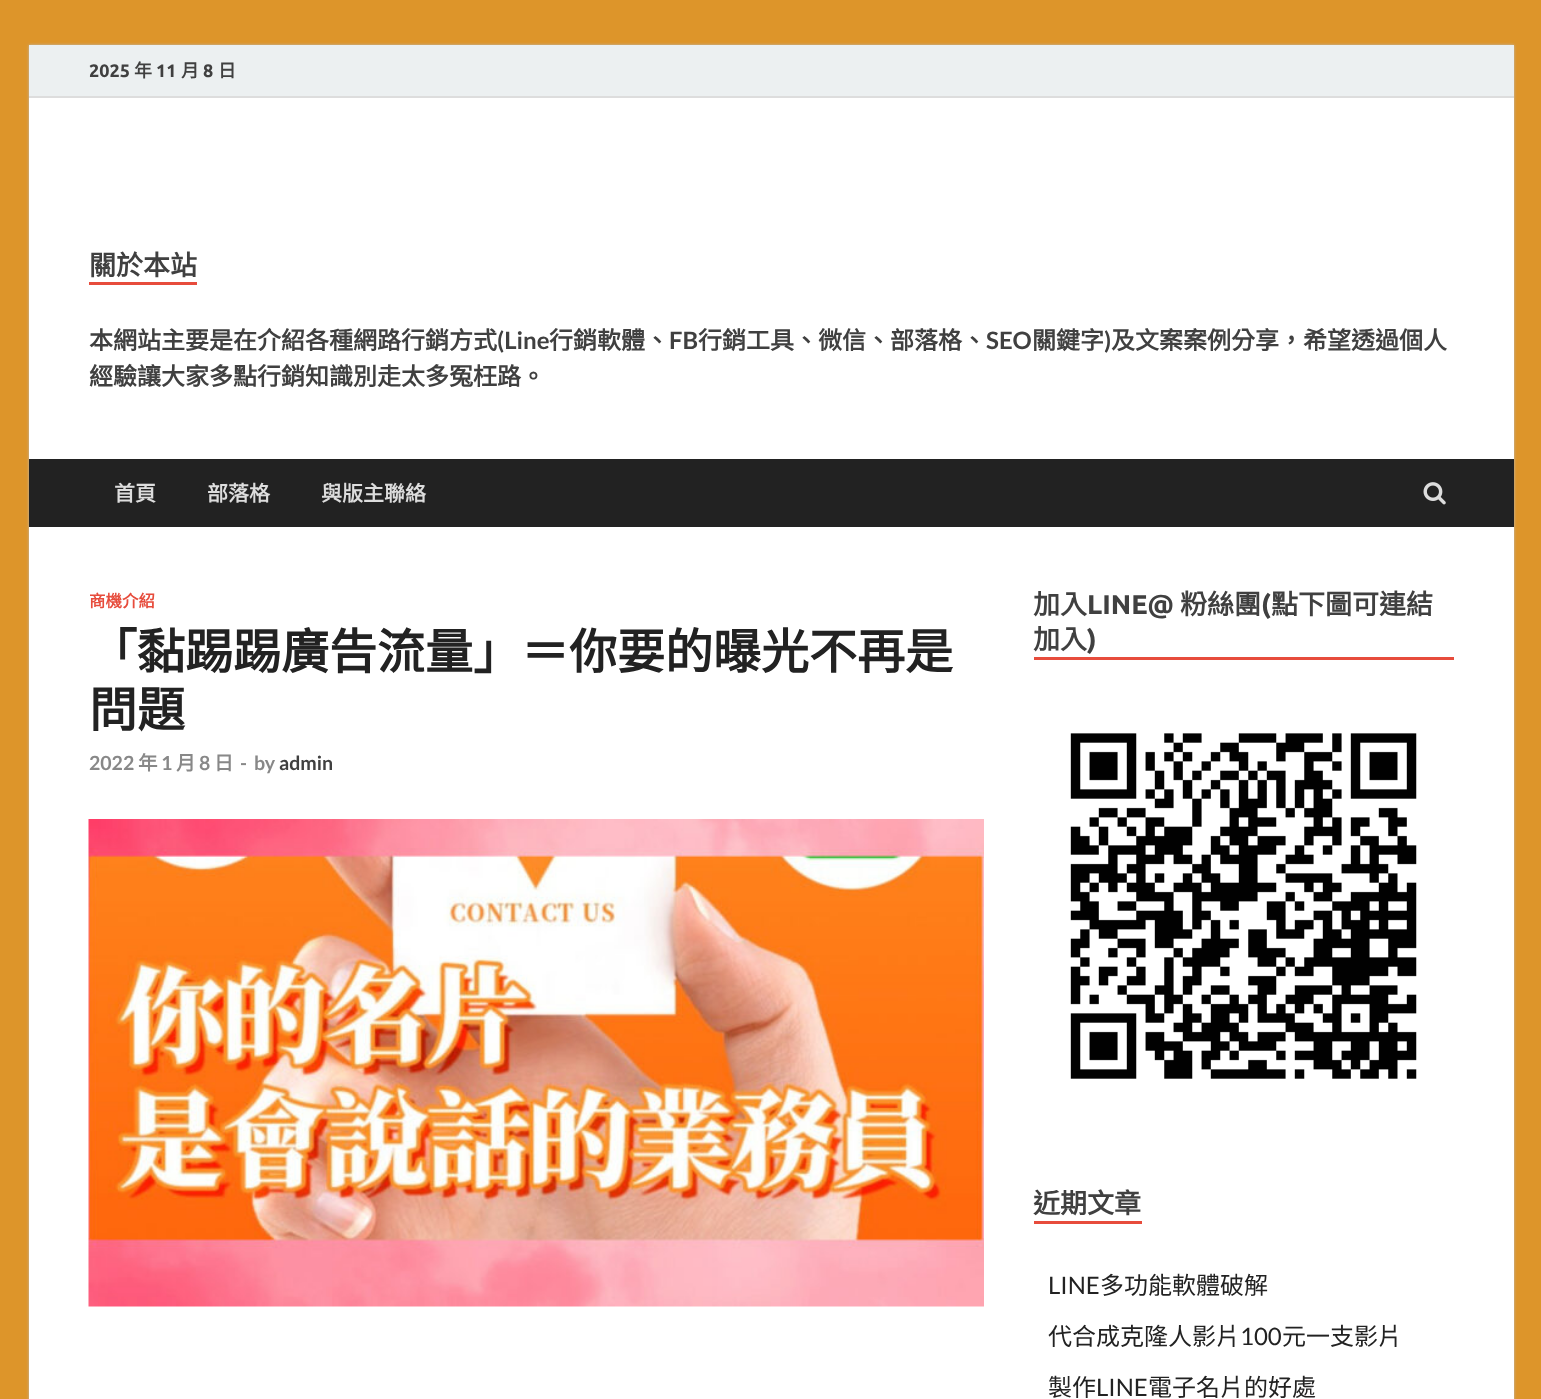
<svg xmlns="http://www.w3.org/2000/svg" width="1541" height="1399">
<rect width="100%" height="100%" fill="#dd952a"/>
<rect x="29" y="45" width="1485" height="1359" fill="#bbb" filter="blur(1.5px)"/>
<rect x="29" y="98" width="1485" height="1301" fill="#fff"/>
<rect x="29" y="45" width="1485" height="51" fill="#ecf0f1"/>
<rect x="29" y="96" width="1485" height="2" fill="#ddd"/>
<text x="89" y="77" style="font-family:Ubuntu;font-size:18px;font-weight:bold;fill:#404040">2025</text>
<text x="134" y="77" style="font-family:Noto Sans CJK TC;font-size:18px;font-weight:bold;fill:#404040">年</text>
<text x="156" y="77" style="font-family:Ubuntu;font-size:18px;font-weight:bold;fill:#404040">11</text>
<text x="181" y="77" style="font-family:Noto Sans CJK TC;font-size:18px;font-weight:bold;fill:#404040">月</text>
<text x="203" y="77" style="font-family:Ubuntu;font-size:18px;font-weight:bold;fill:#404040">8</text>
<text x="218" y="77" style="font-family:Noto Sans CJK TC;font-size:18px;font-weight:bold;fill:#404040">日</text>
<rect x="89" y="282" width="108" height="3" fill="#e74c3c"/>
<text x="89" y="275" style="font-family:Noto Sans CJK TC;font-size:27px;font-weight:bold;fill:#404040">關於本站</text>
<text x="89" y="349" style="font-family:Noto Sans CJK TC;font-size:24px;font-weight:bold;fill:#404040">本網站主要是在介紹各種網路行銷方式</text>
<text x="497" y="349" style="font-family:Lato;font-size:24px;font-weight:bold;fill:#404040">(Line</text>
<text x="549" y="349" style="font-family:Noto Sans CJK TC;font-size:24px;font-weight:bold;fill:#404040">行銷軟體、</text>
<text x="669" y="349" style="font-family:Lato;font-size:24px;font-weight:bold;fill:#404040">FB</text>
<text x="698" y="349" style="font-family:Noto Sans CJK TC;font-size:24px;font-weight:bold;fill:#404040">行銷工具、微信、部落格、</text>
<text x="986" y="349" style="font-family:Lato;font-size:24px;font-weight:bold;fill:#404040">SEO</text>
<text x="1032" y="349" style="font-family:Noto Sans CJK TC;font-size:24px;font-weight:bold;fill:#404040">關鍵字</text>
<text x="1104" y="349" style="font-family:Lato;font-size:24px;font-weight:bold;fill:#404040">)</text>
<text x="1111" y="349" style="font-family:Noto Sans CJK TC;font-size:24px;font-weight:bold;fill:#404040">及文案案例分享，希望透過個人</text>
<text x="89" y="385" style="font-family:Noto Sans CJK TC;font-size:24px;font-weight:bold;fill:#404040">經驗讓大家多點行銷知識別走太多冤枉路。</text>
<rect x="29" y="459" width="1485" height="68" fill="#222"/>
<text x="114" y="501" style="font-family:Noto Sans CJK TC;font-size:21px;font-weight:bold;fill:#ddd">首頁</text>
<text x="207" y="501" style="font-family:Noto Sans CJK TC;font-size:21px;font-weight:bold;fill:#ddd">部落格</text>
<text x="321" y="501" style="font-family:Noto Sans CJK TC;font-size:21px;font-weight:bold;fill:#ddd">與版主聯絡</text>
<image x="1423" y="482" width="23" height="23" href="media/1.png"/>
<text x="89" y="607" style="font-family:Noto Sans CJK TC;font-size:16.5px;font-weight:bold;fill:#e74c3c">商機介紹</text>
<text x="89" y="669" style="font-family:Noto Sans CJK TC;font-size:48px;font-weight:bold;fill:#222">「黏踢踢廣告流量」＝你要的曝光不再是</text>
<text x="89" y="727" style="font-family:Noto Sans CJK TC;font-size:48px;font-weight:bold;fill:#222">問題</text>
<text x="89" y="770" style="font-family:Lato;font-size:19.5px;font-weight:bold;fill:#888">2022</text>
<text x="138" y="770" style="font-family:Noto Sans CJK TC;font-size:19.5px;font-weight:bold;fill:#888">年</text>
<text x="161" y="770" style="font-family:Lato;font-size:19.5px;font-weight:bold;fill:#888">1</text>
<text x="176" y="770" style="font-family:Noto Sans CJK TC;font-size:19.5px;font-weight:bold;fill:#888">月</text>
<text x="199" y="770" style="font-family:Lato;font-size:19.5px;font-weight:bold;fill:#888">8</text>
<text x="214" y="770" style="font-family:Noto Sans CJK TC;font-size:19.5px;font-weight:bold;fill:#888">日</text>
<text x="240" y="770" style="font-family:Lato;font-size:19.5px;font-weight:bold;fill:#888">-</text>
<text x="254" y="770" style="font-family:Lato;font-size:19.5px;font-weight:bold;fill:#888">by</text>
<text x="279" y="770" style="font-family:Lato;font-size:19.5px;font-weight:bold;fill:#404040">admin</text>
<image x="88" y="819" width="896" height="488" href="media/2.png"/>
<rect x="1034" y="657" width="420" height="3" fill="#e74c3c"/>
<text x="1033" y="614" style="font-family:Noto Sans CJK TC;font-size:27px;font-weight:bold;fill:#404040">加入</text>
<text x="1087" y="614" style="font-family:Ubuntu;font-size:27px;font-weight:bold;fill:#404040">LINE@</text>
<text x="1180" y="614" style="font-family:Noto Sans CJK TC;font-size:27px;font-weight:bold;fill:#404040">粉絲團</text>
<text x="1261" y="614" style="font-family:Ubuntu;font-size:27px;font-weight:bold;fill:#404040">(</text>
<text x="1271" y="614" style="font-family:Noto Sans CJK TC;font-size:27px;font-weight:bold;fill:#404040">點下圖可連結</text>
<text x="1033" y="649" style="font-family:Noto Sans CJK TC;font-size:27px;font-weight:bold;fill:#404040">加入</text>
<text x="1087" y="649" style="font-family:Ubuntu;font-size:27px;font-weight:bold;fill:#404040">)</text>
<image x="1070" y="733" width="347" height="346" href="media/3.png"/>
<rect x="1034" y="1221" width="108" height="3" fill="#e74c3c"/>
<text x="1033" y="1213" style="font-family:Noto Sans CJK TC;font-size:27px;font-weight:bold;fill:#404040">近期文章</text>
<text x="1048" y="1294" style="font-family:Lato;font-size:24px;fill:#222">LINE</text>
<text x="1100" y="1294" style="font-family:Noto Sans CJK TC;font-size:24px;fill:#222">多功能軟體破解</text>
<text x="1048" y="1345" style="font-family:Noto Sans CJK TC;font-size:24px;fill:#222">代合成克隆人影片</text>
<text x="1240" y="1345" style="font-family:Lato;font-size:24px;fill:#222">100</text>
<text x="1282" y="1345" style="font-family:Noto Sans CJK TC;font-size:24px;fill:#222">元一支影片</text>
<text x="1048" y="1396" style="font-family:Noto Sans CJK TC;font-size:24px;fill:#222">製作</text>
<text x="1096" y="1396" style="font-family:Lato;font-size:24px;fill:#222">LINE</text>
<text x="1148" y="1396" style="font-family:Noto Sans CJK TC;font-size:24px;fill:#222">電子名片的好處</text>
</svg>
